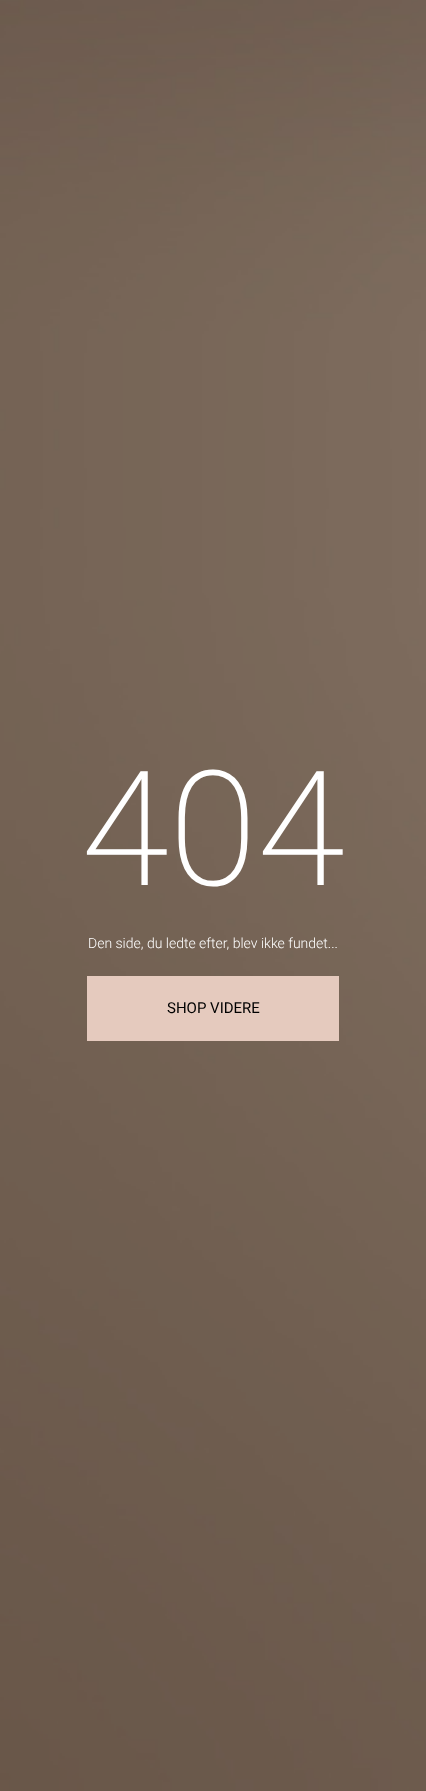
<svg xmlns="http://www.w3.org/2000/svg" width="426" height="1791">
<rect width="100%" height="100%" fill="#fff"/>
<image x="0" y="0" width="426" height="1791" href="media/1.png"/>
<text x="81" y="885" style="font-family:Roboto;font-size:160px;font-weight:200;fill:#fff">404</text>
<text x="88" y="948" style="font-family:Roboto;font-size:14px;font-weight:300;fill:#fff">Den side, du ledte efter, blev ikke fundet...</text>
<rect x="87" y="976" width="252" height="65" fill="#e5cabe"/>
<text x="167" y="1013" style="font-family:Roboto;font-size:15px;fill:#000">SHOP VIDERE</text>
</svg>
